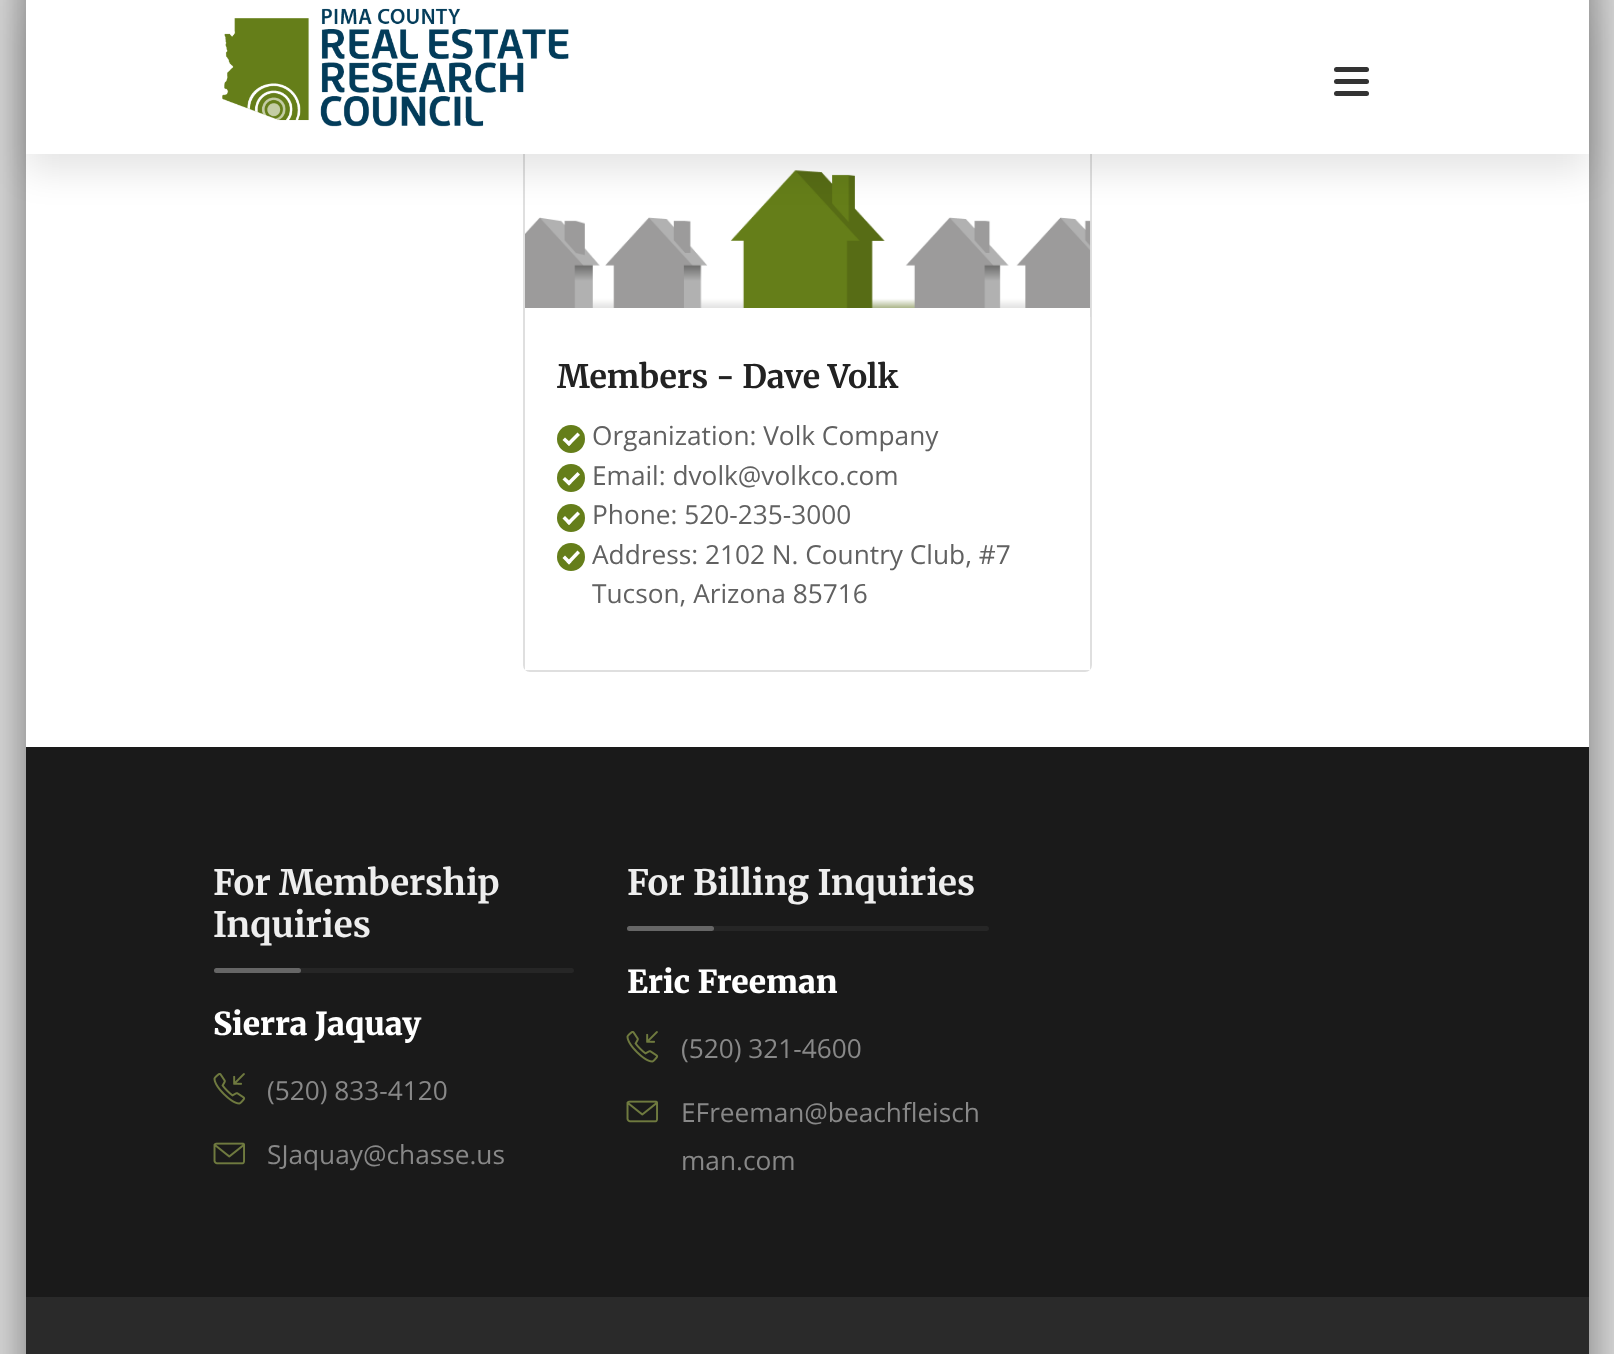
<svg xmlns="http://www.w3.org/2000/svg" width="1614" height="1354">
<rect width="100%" height="100%" fill="#d8d8d8"/>
<rect x="26" y="-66" width="1563" height="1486" fill="#777" filter="blur(22px)"/>
<rect x="26" y="154" width="1563" height="593" fill="#fff"/>
<rect x="524" y="62" width="567" height="609" rx="6" fill="none" stroke="#dfdfdf" stroke-width="2"/>
<image x="525" y="154" width="566" height="329" href="media/2.png"/>
<rect x="26" y="18" width="1563" height="154" fill="#0000001a" filter="blur(17.5px)"/>
<rect x="26" width="1563" height="154" fill="#fff"/>
<image x="222" y="8" width="347" height="119" href="media/1.png"/>
<rect x="1334" y="67" width="35" height="5" rx="2.5" fill="#333"/>
<rect x="1334" y="79" width="35" height="5" rx="2.5" fill="#333"/>
<rect x="1334" y="91" width="35" height="5" rx="2.5" fill="#333"/>
<rect x="525" y="308" width="565" height="362" fill="#fff"/>
<text x="557" y="388" style="font-family:Merriweather;font-size:32.25px;font-weight:bold;fill:#222">Members - Dave Volk</text>
<circle cx="571" cy="439" r="14" fill="#657e1a"/>
<text x="592" y="445" style="font-family:Open Sans;font-size:26.25px;fill:#616161">Organization: Volk Company</text>
<path d="M577.5 432.5l2.5 2.5l-11 11l-2.5-2.5z" fill="#fff"/>
<path d="M565 437.5l6.5 6l-2.5 2.5l-6.5-6z" fill="#fff"/>
<circle cx="571" cy="478" r="14" fill="#657e1a"/>
<text x="592" y="485" style="font-family:Open Sans;font-size:26.25px;fill:#616161">Email: dvolk@volkco.com</text>
<path d="M577.5 472l2.5 2.5l-11 11l-2.5-2.5z" fill="#fff"/>
<path d="M565 477l6.5 6l-2.5 2.5l-6.5-6z" fill="#fff"/>
<circle cx="571" cy="518" r="14" fill="#657e1a"/>
<text x="592" y="524" style="font-family:Open Sans;font-size:26.25px;fill:#616161">Phone: 520-235-3000</text>
<path d="M577.5 511.5l2.5 2.5l-11 11l-2.5-2.5z" fill="#fff"/>
<path d="M565 516l6.5 6.5l-2.5 2.5l-6.5-6.5z" fill="#fff"/>
<circle cx="571" cy="557" r="14" fill="#657e1a"/>
<text x="592" y="564" style="font-family:Open Sans;font-size:26.25px;fill:#616161">Address: 2102 N. Country Club, #7</text>
<path d="M577.5 550.5l2.5 2.5l-11 11.5l-2.5-2.5z" fill="#fff"/>
<path d="M565 555.5l6.5 6.5l-2.5 2.5l-6.5-6.5z" fill="#fff"/>
<text x="592" y="603" style="font-family:Open Sans;font-size:26.25px;fill:#616161">Tucson, Arizona 85716</text>
<rect x="26" y="747" width="1563" height="550" fill="#1a1a1a"/>
<text x="213" y="895" style="font-family:Merriweather;font-size:35px;font-weight:bold;fill:#eee">For Membership</text>
<text x="213" y="937" style="font-family:Merriweather;font-size:35px;font-weight:bold;fill:#eee">Inquiries</text>
<rect x="214" y="968" width="360" height="5" rx="2.5" fill="#262626"/>
<rect x="214" y="968" width="87" height="5" rx="2.5" fill="#666"/>
<text x="213" y="1035" style="font-family:Merriweather;font-size:31.5px;font-weight:900;fill:#fff">Sierra Jaquay</text>
<image x="213" y="1073" width="33" height="32" href="media/3.png"/>
<text x="267" y="1100" style="font-family:Open Sans;font-size:26.25px;fill:#888">(520) 833-4120</text>
<image x="213" y="1142" width="32" height="23" href="media/4.png"/>
<text x="267" y="1164" style="font-family:Open Sans;font-size:26.25px;fill:#888">SJaquay@chasse.us</text>
<text x="627" y="895" style="font-family:Merriweather;font-size:35px;font-weight:bold;fill:#eee">For Billing Inquiries</text>
<rect x="627" y="926" width="362" height="5" rx="2.5" fill="#262626"/>
<rect x="627" y="926" width="87" height="5" rx="2.5" fill="#666"/>
<text x="627" y="993" style="font-family:Merriweather;font-size:31.5px;font-weight:900;fill:#fff">Eric Freeman</text>
<image x="626" y="1031" width="33" height="32" href="media/3.png"/>
<text x="681" y="1058" style="font-family:Open Sans;font-size:26.25px;fill:#888">(520) 321-4600</text>
<image x="626" y="1100" width="32" height="23" href="media/4.png"/>
<text x="681" y="1122" style="font-family:Open Sans;font-size:26.25px;fill:#888">EFreeman@beachfleisch</text>
<text x="681" y="1170" style="font-family:Open Sans;font-size:26.25px;fill:#888">man.com</text>
<rect x="26" y="1297" width="1563" height="57" fill="#2a2a2a"/>
</svg>
